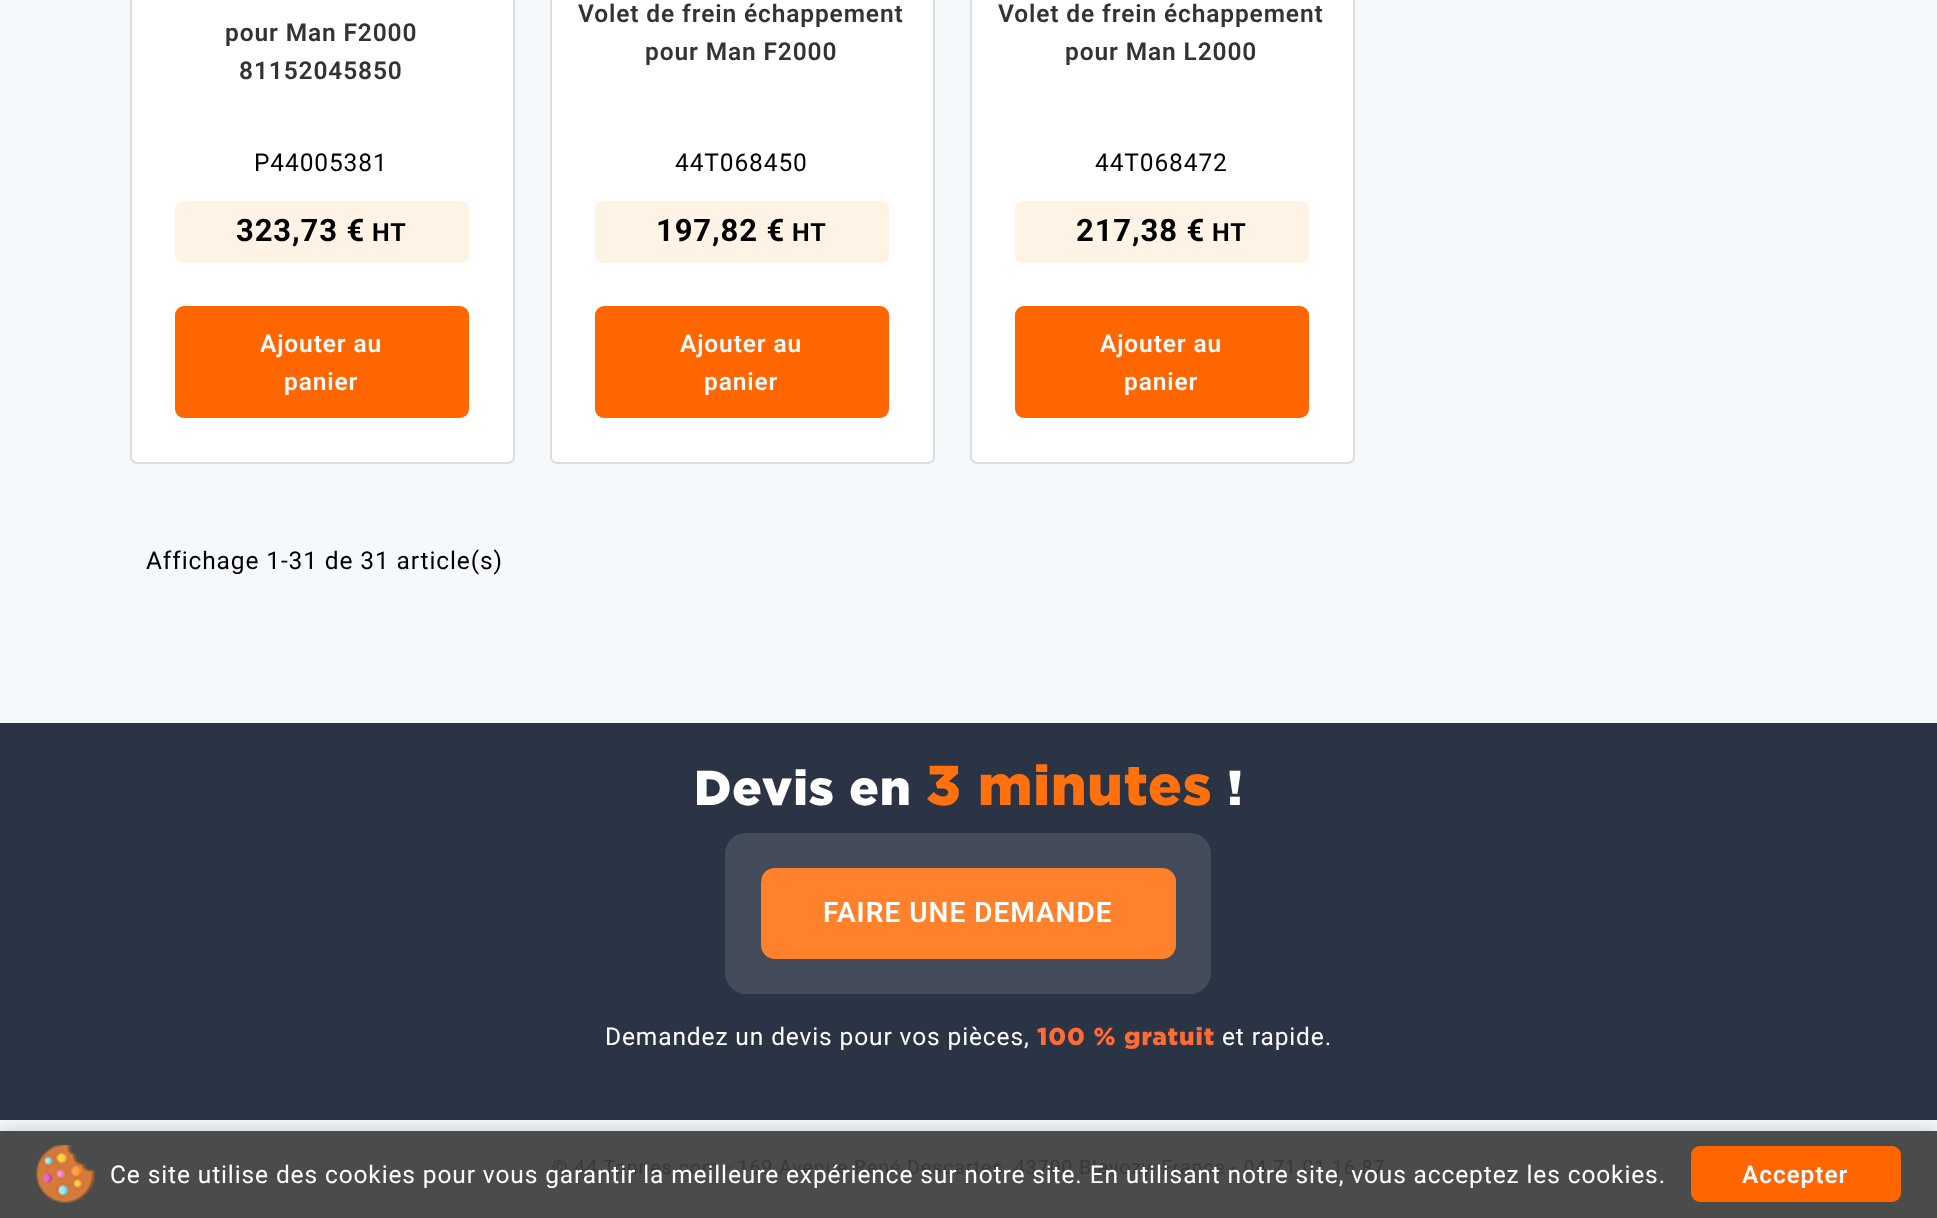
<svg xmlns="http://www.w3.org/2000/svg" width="1937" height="1218">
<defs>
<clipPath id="clip1"><rect x="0" y="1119" width="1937" height="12"/></clipPath>
</defs>
<rect width="100%" height="100%" fill="#f6f9fc"/>
<rect x="131" y="-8" width="383" height="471" rx="6" fill="#fff" stroke="#ddd" stroke-width="2"/>
<text x="225" y="41" style="font-family:Roboto;font-size:24.5px;font-weight:600;letter-spacing:0.88px;fill:#333">pour Man F2000</text>
<text x="239" y="79" style="font-family:Roboto;font-size:24.5px;font-weight:600;letter-spacing:0.88px;fill:#333">81152045850</text>
<text x="254" y="171" style="font-family:Roboto;font-size:24.5px;letter-spacing:0.88px;fill:#000">P44005381</text>
<rect x="175" y="201" width="294" height="62" rx="7" fill="#fff3e6"/>
<text x="236" y="241" style="font-family:Roboto;font-size:31px;font-weight:bold;letter-spacing:0.88px;fill:#000">323,73 €</text>
<text x="372" y="241" style="font-family:Roboto;font-size:25px;font-weight:bold;letter-spacing:0.88px;fill:#000">HT</text>
<rect x="175" y="306" width="294" height="112" rx="9" fill="#f60"/>
<text x="260" y="352" style="font-family:Roboto;font-size:24.5px;font-weight:600;letter-spacing:0.88px;fill:#f6f9fc">Ajouter au</text>
<text x="284" y="390" style="font-family:Roboto;font-size:24.5px;font-weight:600;letter-spacing:0.88px;fill:#f6f9fc">panier</text>
<rect x="551" y="-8" width="383" height="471" rx="6" fill="#fff" stroke="#ddd" stroke-width="2"/>
<text x="578" y="22" style="font-family:Roboto;font-size:24.5px;font-weight:600;letter-spacing:0.88px;fill:#333">Volet de frein échappement</text>
<text x="645" y="60" style="font-family:Roboto;font-size:24.5px;font-weight:600;letter-spacing:0.88px;fill:#333">pour Man F2000</text>
<text x="675" y="171" style="font-family:Roboto;font-size:24.5px;letter-spacing:0.88px;fill:#000">44T068450</text>
<rect x="595" y="201" width="294" height="62" rx="7" fill="#fff3e6"/>
<text x="656" y="241" style="font-family:Roboto;font-size:31px;font-weight:bold;letter-spacing:0.88px;fill:#000">197,82 €</text>
<text x="792" y="241" style="font-family:Roboto;font-size:25px;font-weight:bold;letter-spacing:0.88px;fill:#000">HT</text>
<rect x="595" y="306" width="294" height="112" rx="9" fill="#f60"/>
<text x="680" y="352" style="font-family:Roboto;font-size:24.5px;font-weight:600;letter-spacing:0.88px;fill:#f6f9fc">Ajouter au</text>
<text x="704" y="390" style="font-family:Roboto;font-size:24.5px;font-weight:600;letter-spacing:0.88px;fill:#f6f9fc">panier</text>
<rect x="971" y="-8" width="383" height="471" rx="6" fill="#fff" stroke="#ddd" stroke-width="2"/>
<text x="998" y="22" style="font-family:Roboto;font-size:24.5px;font-weight:600;letter-spacing:0.88px;fill:#333">Volet de frein échappement</text>
<text x="1065" y="60" style="font-family:Roboto;font-size:24.5px;font-weight:600;letter-spacing:0.88px;fill:#333">pour Man L2000</text>
<text x="1095" y="171" style="font-family:Roboto;font-size:24.5px;letter-spacing:0.88px;fill:#000">44T068472</text>
<rect x="1015" y="201" width="294" height="62" rx="7" fill="#fff3e6"/>
<text x="1076" y="241" style="font-family:Roboto;font-size:31px;font-weight:bold;letter-spacing:0.88px;fill:#000">217,38 €</text>
<text x="1212" y="241" style="font-family:Roboto;font-size:25px;font-weight:bold;letter-spacing:0.88px;fill:#000">HT</text>
<rect x="1015" y="306" width="294" height="112" rx="9" fill="#f60"/>
<text x="1100" y="352" style="font-family:Roboto;font-size:24.5px;font-weight:600;letter-spacing:0.88px;fill:#f6f9fc">Ajouter au</text>
<text x="1124" y="390" style="font-family:Roboto;font-size:24.5px;font-weight:600;letter-spacing:0.88px;fill:#f6f9fc">panier</text>
<text x="146" y="569" style="font-family:Roboto;font-size:24.5px;letter-spacing:0.88px;fill:#000">Affichage 1-31 de 31 article(s)</text>
<rect y="723" width="1937" height="397" fill="#2b3445"/>
<text x="694" y="805" style="font-family:Gotham;font-size:49px;font-weight:900;letter-spacing:0.88px;fill:#fff">Devis en</text>
<text x="926" y="805" style="font-family:Gotham;font-size:56px;font-weight:900;letter-spacing:0.88px;fill:#ff700f">3 minutes</text>
<text x="1227" y="805" style="font-family:Gotham;font-size:49px;font-weight:900;letter-spacing:0.88px;fill:#fff">!</text>
<rect x="761" y="868" width="415" height="91" rx="14" fill="#ff700f"/>
<rect x="725" y="833" width="486" height="161" rx="21" fill="#ffffff1f"/>
<text x="823" y="922" style="font-family:Roboto;font-size:28px;font-weight:600;letter-spacing:1px;fill:#fff">FAIRE UNE DEMANDE</text>
<text x="605" y="1045" style="font-family:Roboto;font-size:24.5px;letter-spacing:0.88px;fill:#fff">Demandez un devis pour vos pièces,</text>
<text x="1037" y="1045" style="font-family:Gotham;font-size:24.5px;font-weight:900;letter-spacing:0.88px;fill:#ff6b35">100 % gratuit</text>
<text x="1222" y="1045" style="font-family:Roboto;font-size:24.5px;letter-spacing:0.88px;fill:#fff">et rapide.</text>
<rect y="1131" width="1937" height="87" fill="#4a4b4b"/>
<text x="552" y="1174" style="font-family:Roboto;font-size:19.6px;letter-spacing:0.88px;fill:#393939">© 44 Tonnes.com - 169 Avenue René Descartes, 43700 Blavozy, France - 04 71 01 16 87</text>
<g clip-path="url(#clip1)">
<rect y="1131" width="1937" height="87" fill="#00000033" filter="blur(9px)"/>
</g>
<image x="36" y="1145" width="59" height="58" href="media/1.png"/>
<text x="110" y="1183" style="font-family:Roboto;font-size:24.5px;letter-spacing:0.88px;fill:#fff">Ce site utilise des cookies pour vous garantir la meilleure expérience sur notre site. En utilisant notre site, vous acceptez les cookies.</text>
<rect x="1691" y="1146" width="210" height="56" rx="9" fill="#f60"/>
<text x="1742" y="1183" style="font-family:Roboto;font-size:24.5px;font-weight:600;letter-spacing:0.88px;fill:#f6f9fc">Accepter</text>
</svg>
